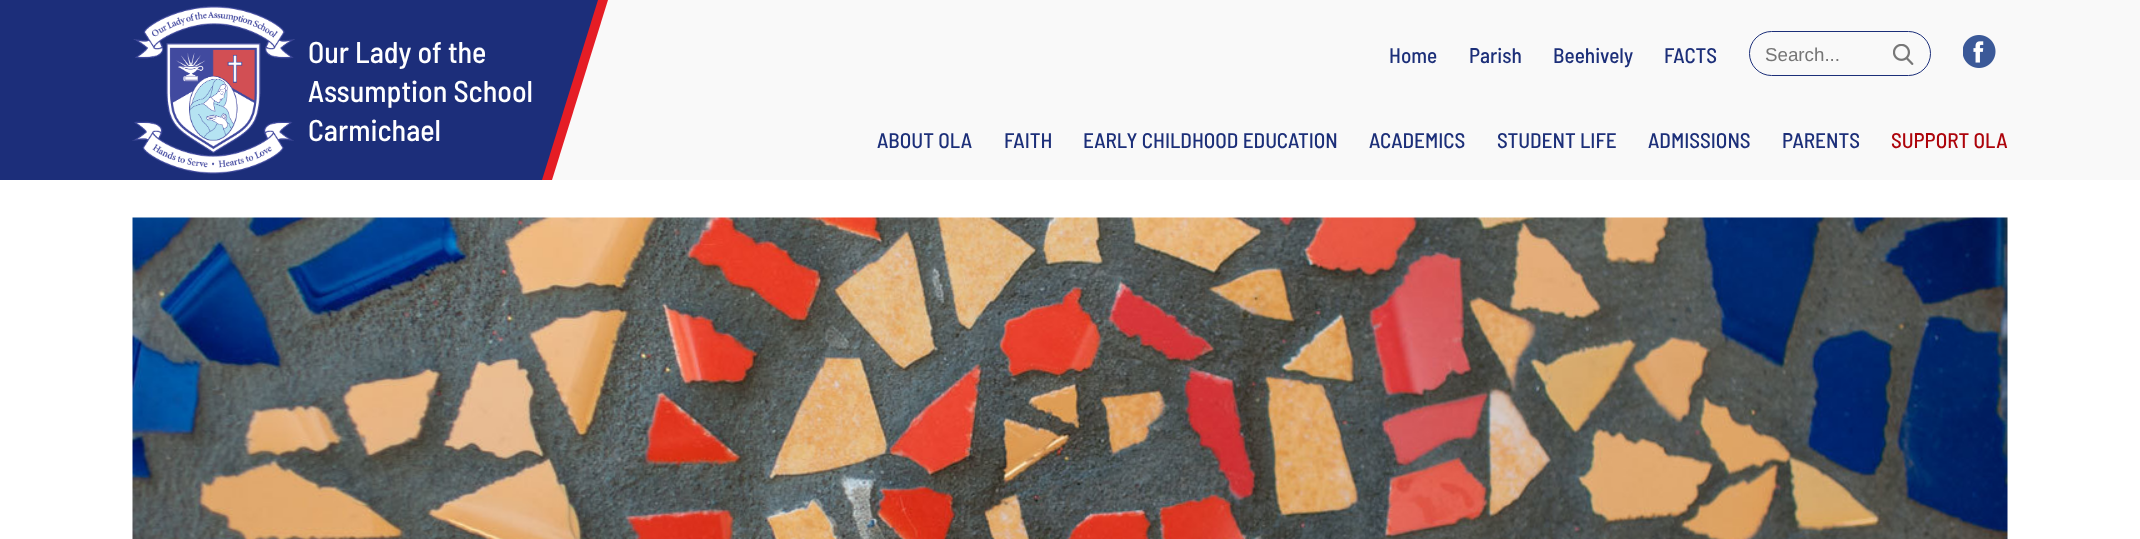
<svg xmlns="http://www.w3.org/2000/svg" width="2140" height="539">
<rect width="100%" height="100%" fill="#fff"/>
<rect x="552" width="1588" height="180" fill="#f9f9f9"/>
<path d="M-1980 0h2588l-56 180h-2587z" fill="#e51d25"/>
<path d="M-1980 0h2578l-56 180h-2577z" fill="#1c2e7a"/>
<image x="132" y="6" width="163" height="168" href="media/1.png"/>
<text x="308" y="63" style="font-family:Barlow Semi Condensed;font-size:30px;font-weight:500;fill:#fff">Our Lady of the</text>
<text x="308" y="102" style="font-family:Barlow Semi Condensed;font-size:30px;font-weight:500;fill:#fff">Assumption School</text>
<text x="308" y="141" style="font-family:Barlow Semi Condensed;font-size:30px;font-weight:500;fill:#fff">Carmichael</text>
<text x="1389" y="63" style="font-family:Barlow Semi Condensed;font-size:21.25px;font-weight:500;fill:#1c2f79">Home</text>
<text x="1469" y="63" style="font-family:Barlow Semi Condensed;font-size:21.25px;font-weight:500;fill:#1c2f79">Parish</text>
<text x="1553" y="63" style="font-family:Barlow Semi Condensed;font-size:21.25px;font-weight:500;fill:#1c2f79">Beehively</text>
<text x="1664" y="63" style="font-family:Barlow Semi Condensed;font-size:21.25px;font-weight:500;fill:#1c2f79">FACTS</text>
<rect x="1749.5" y="31.5" width="181" height="44" rx="22" fill="none" stroke="#1c2f79"/>
<text x="1765" y="61" style="font-family:Liberation Sans;font-size:18.75px;fill:#757575">Search...</text>
<image x="1893" y="44" width="21" height="21" href="media/2.png"/>
<image x="1963" y="35" width="33" height="33" href="media/3.png"/>
<text x="877" y="148" style="font-family:Barlow Semi Condensed;font-size:21.25px;font-weight:500;fill:#1c2f79">ABOUT OLA</text>
<text x="1004" y="148" style="font-family:Barlow Semi Condensed;font-size:21.25px;font-weight:500;fill:#1c2f79">FAITH</text>
<text x="1083" y="148" style="font-family:Barlow Semi Condensed;font-size:21.25px;font-weight:500;fill:#1c2f79">EARLY CHILDHOOD EDUCATION</text>
<text x="1369" y="148" style="font-family:Barlow Semi Condensed;font-size:21.25px;font-weight:500;fill:#1c2f79">ACADEMICS</text>
<text x="1497" y="148" style="font-family:Barlow Semi Condensed;font-size:21.25px;font-weight:500;fill:#1c2f79">STUDENT LIFE</text>
<text x="1648" y="148" style="font-family:Barlow Semi Condensed;font-size:21.25px;font-weight:500;fill:#1c2f79">ADMISSIONS</text>
<text x="1782" y="148" style="font-family:Barlow Semi Condensed;font-size:21.25px;font-weight:500;fill:#1c2f79">PARENTS</text>
<text x="1891" y="148" style="font-family:Barlow Semi Condensed;font-size:21.25px;font-weight:500;fill:#ad040b">SUPPORT OLA</text>
<image x="132" y="217" width="1876" height="322" href="media/4.png"/>
</svg>
